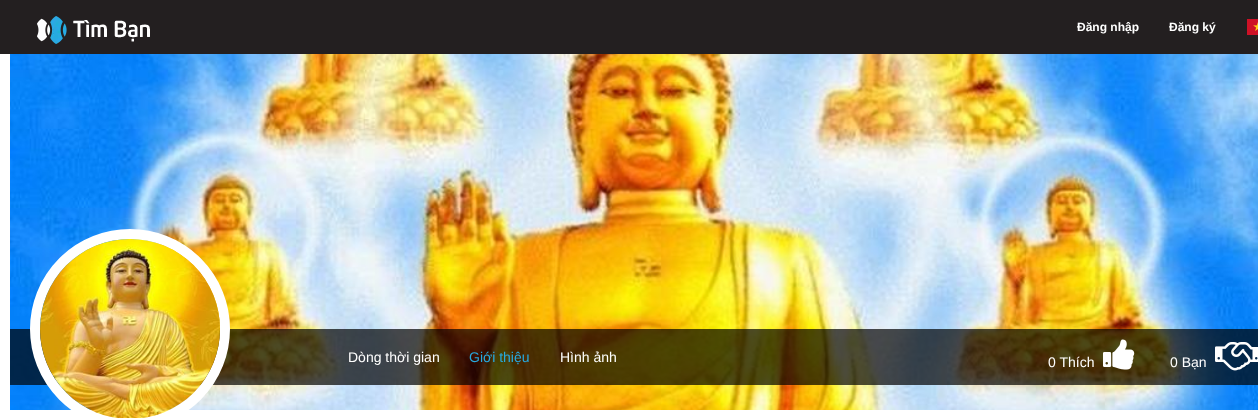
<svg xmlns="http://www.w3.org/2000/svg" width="1258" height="418">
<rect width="100%" height="100%" fill="#fff"/>
<rect width="1258" height="54" fill="#231f20"/>
<image x="37" y="16" width="113" height="28" href="media/1.png"/>
<text x="1077" y="31" style="font-family:Liberation Sans;font-size:12px;font-weight:bold;fill:#fff">Đăng nhập</text>
<text x="1169" y="31" style="font-family:Liberation Sans;font-size:12px;font-weight:bold;fill:#fff">Đăng ký</text>
<image x="1247" y="19" width="11" height="16" href="media/2.png"/>
<image x="10" y="54" width="1248" height="356" href="media/3.png"/>
<rect x="10" y="329" width="1248" height="56" fill="#000000b3"/>
<circle cx="130" cy="329" r="95" fill="none" stroke="#fff" stroke-width="10"/>
<image x="40" y="239" width="180" height="179" href="media/4.png"/>
<text x="348" y="362" style="font-family:Liberation Sans;font-size:14px;fill:#fff">Dòng thời gian</text>
<text x="469" y="362" style="font-family:Liberation Sans;font-size:14px;fill:#27aae1">Giới thiệu</text>
<text x="560" y="362" style="font-family:Liberation Sans;font-size:14px;fill:#fff">Hình ảnh</text>
<text x="1048" y="367" style="font-family:Liberation Sans;font-size:14px;fill:#fff">0 Thích</text>
<image x="1103" y="339" width="32" height="31" href="media/5.png"/>
<text x="1170" y="367" style="font-family:Liberation Sans;font-size:14px;fill:#fff">0 Bạn</text>
<image x="1215" y="342" width="43" height="29" href="media/6.png"/>
</svg>
